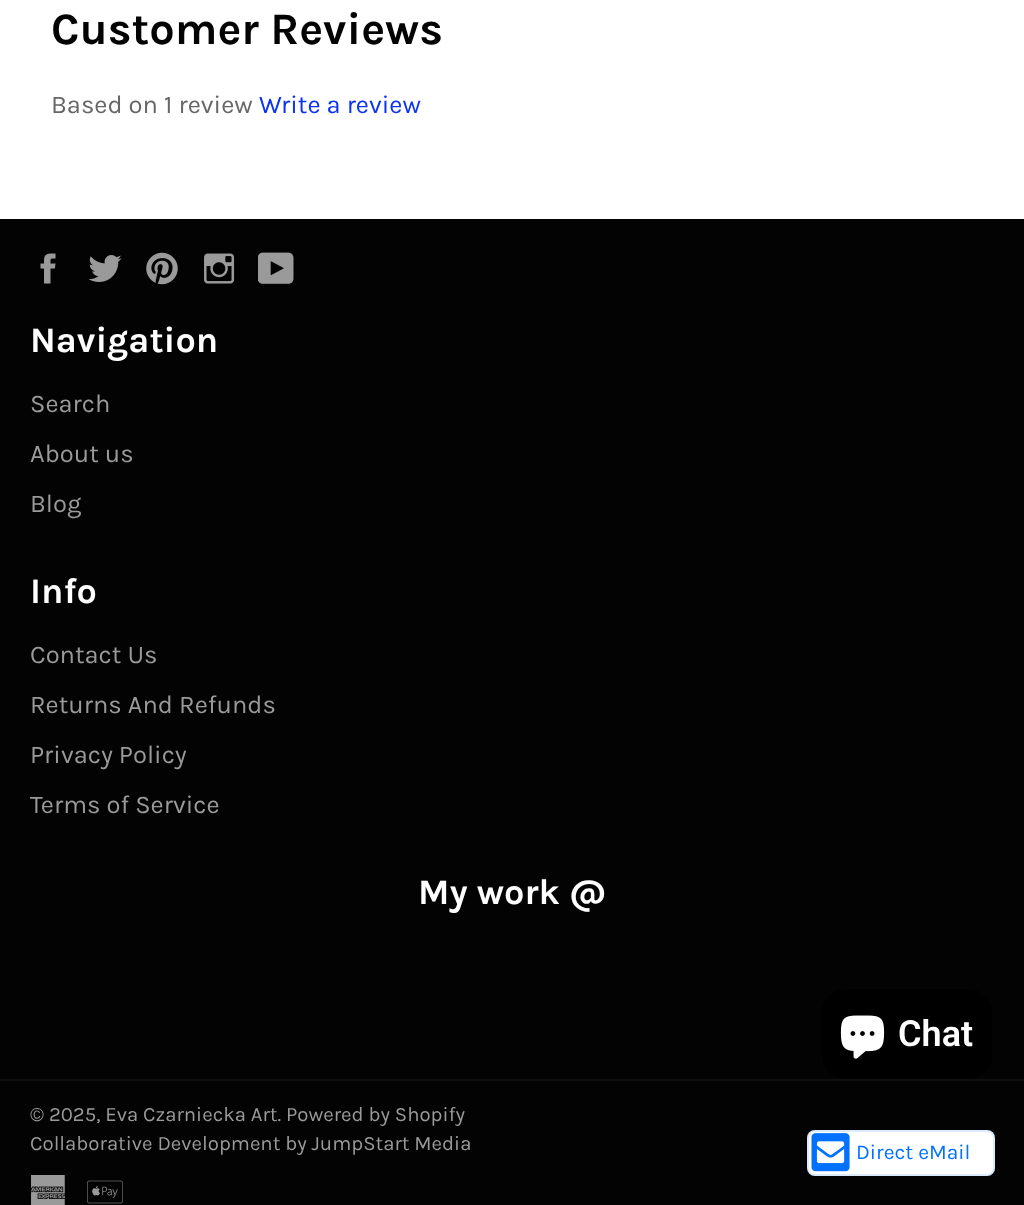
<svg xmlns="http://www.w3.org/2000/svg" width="1024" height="1205">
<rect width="100%" height="100%" fill="#fff"/>
<text x="51" y="44" style="font-family:Karla;font-size:45px;font-weight:bold;fill:#030303">Customer Reviews</text>
<text x="51" y="113" style="font-family:Karla;font-size:25.5px;fill:#666">Based on 1 review</text>
<text x="259" y="113" style="font-family:Karla;font-size:25.5px;fill:#0a32f3">Write a review</text>
<rect y="219" width="1024" height="986" fill="#030303"/>
<image x="40" y="253" width="16" height="31" href="media/1.png"/>
<image x="88" y="255" width="34" height="27" href="media/2.png"/>
<image x="146" y="252" width="32" height="33" href="media/3.png"/>
<image x="204" y="253" width="31" height="31" href="media/4.png"/>
<image x="258" y="252" width="36" height="32" href="media/5.png"/>
<text x="30" y="352" style="font-family:Karla;font-size:36px;font-weight:bold;fill:#fff">Navigation</text>
<text x="30" y="412" style="font-family:Karla;font-size:25.5px;fill:#9a9a9a">Search</text>
<text x="30" y="462" style="font-family:Karla;font-size:25.5px;fill:#9a9a9a">About us</text>
<text x="30" y="512" style="font-family:Karla;font-size:25.5px;fill:#9a9a9a">Blog</text>
<text x="30" y="603" style="font-family:Karla;font-size:36px;font-weight:bold;fill:#fff">Info</text>
<text x="30" y="663" style="font-family:Karla;font-size:25.5px;fill:#9a9a9a">Contact Us</text>
<text x="30" y="713" style="font-family:Karla;font-size:25.5px;fill:#9a9a9a">Returns And Refunds</text>
<text x="30" y="763" style="font-family:Karla;font-size:25.5px;fill:#9a9a9a">Privacy Policy</text>
<text x="30" y="813" style="font-family:Karla;font-size:25.5px;fill:#9a9a9a">Terms of Service</text>
<text x="418" y="904" style="font-family:Karla;font-size:36px;font-weight:bold;fill:#fff">My work @</text>
<rect y="1079" width="1024" height="2" fill="#101010"/>
<text x="30" y="1121" style="font-family:Karla;font-size:20.4px;fill:#9a9a9a">© 2025, Eva Czarniecka Art. Powered by Shopify</text>
<text x="30" y="1150" style="font-family:Karla;font-size:20.4px;fill:#9a9a9a">Collaborative Development by JumpStart Media</text>
<image x="31" y="1175" width="34" height="30" href="media/6.png"/>
<image x="87" y="1180" width="36" height="24" href="media/7.png"/>
<rect x="822" y="989" width="170" height="90" rx="24" fill="#000"/>
<image x="840" y="1015" width="45" height="44" href="media/8.png"/>
<text x="898" y="1046" style="font-family:Roboto;font-size:36px;font-weight:600;fill:#fff">Chat</text>
<rect x="807" y="1130" width="188" height="46" rx="8" fill="#fff"/>
<rect x="808" y="1131" width="186" height="44" rx="7" fill="none" stroke="#0072ff24" stroke-width="2"/>
<image x="811" y="1133" width="39" height="39" href="media/9.png"/>
<text x="856" y="1159" style="font-family:Karla;font-size:21px;fill:#0072ff">Direct eMail</text>
</svg>
